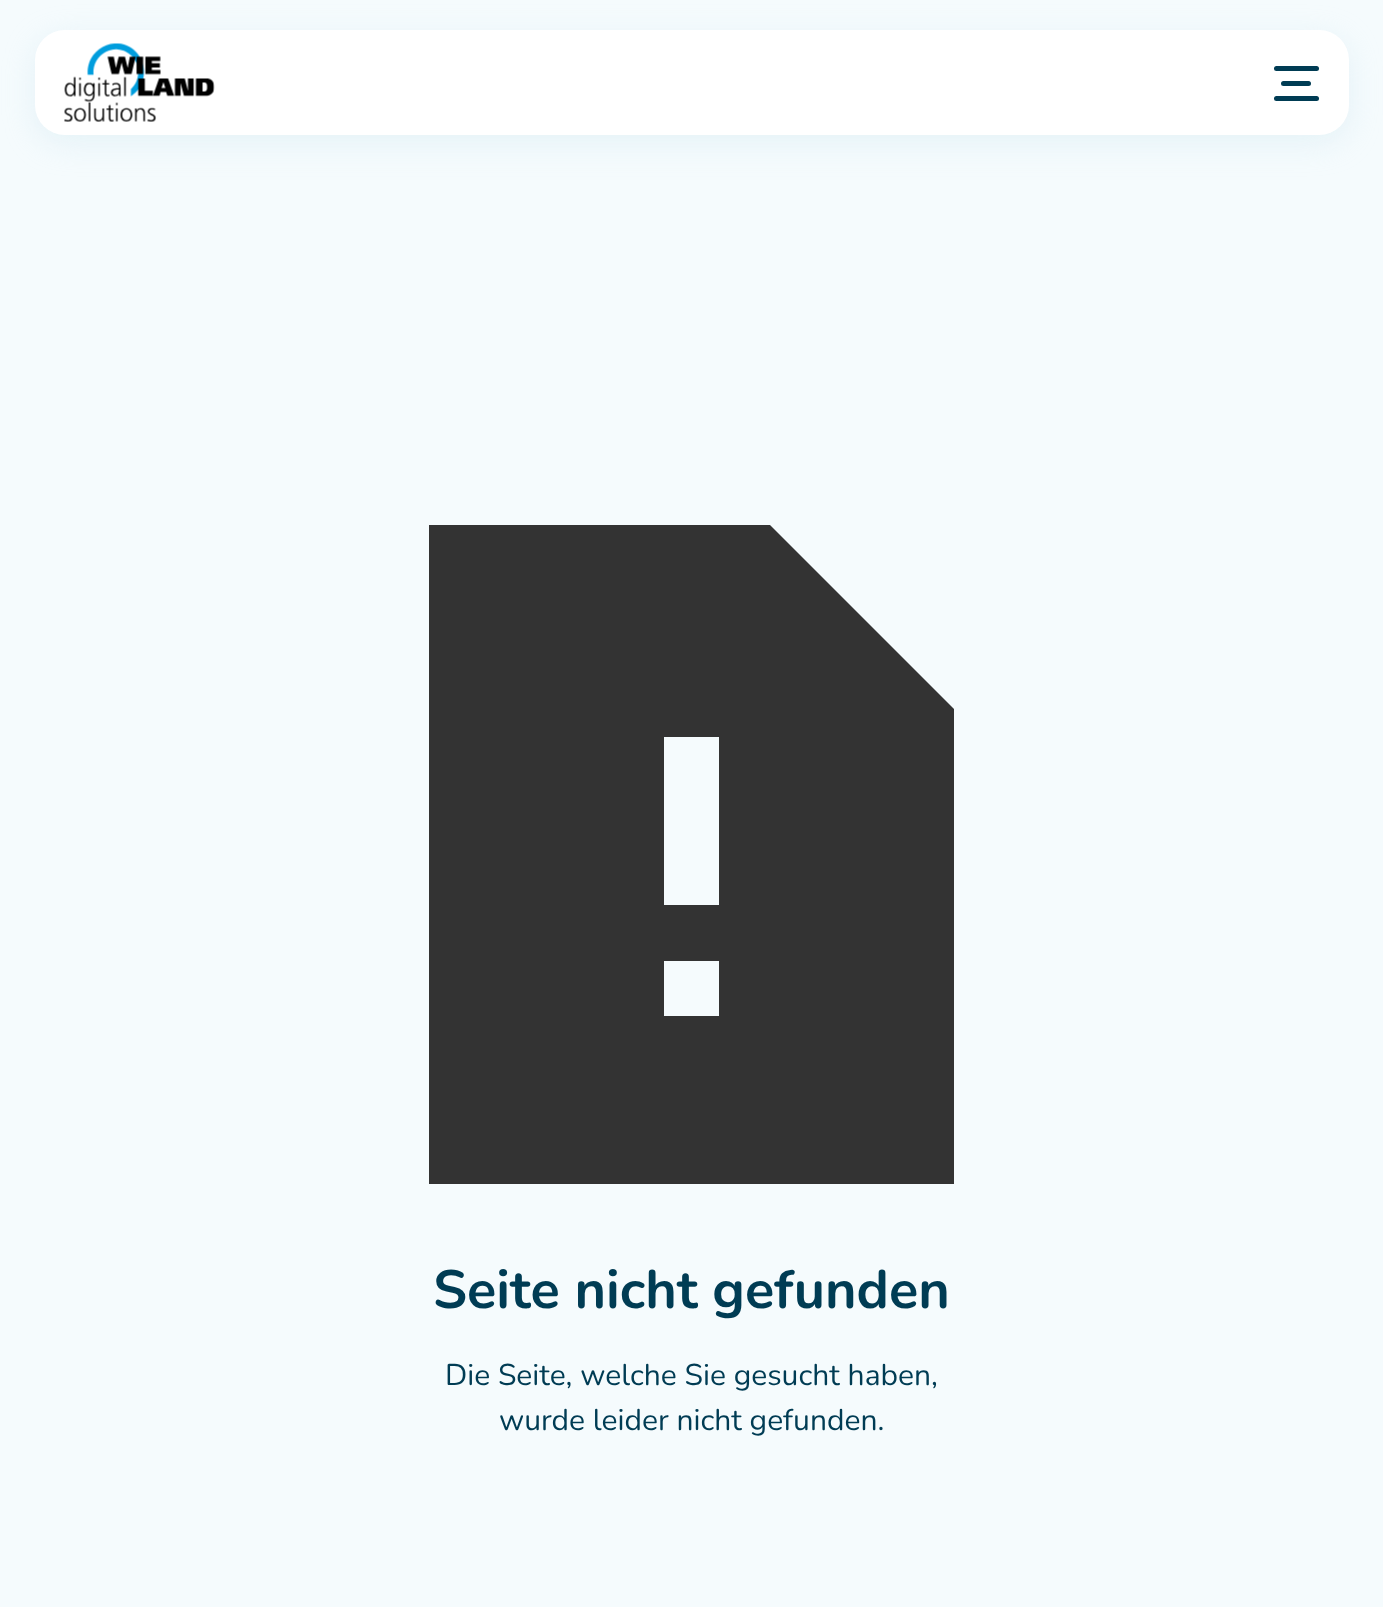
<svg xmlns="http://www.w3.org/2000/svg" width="1383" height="1607">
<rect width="100%" height="100%" fill="#f5fbfd"/>
<rect x="35" y="38" width="1314" height="105" rx="30" fill="#cce6f166" filter="blur(15px)"/>
<rect x="35" y="30" width="1314" height="105" rx="30" fill="#fff"/>
<image x="64" y="43" width="151" height="79" href="media/1.png"/>
<rect x="1274" y="66" width="45" height="5" rx="2.5" fill="#003c54"/>
<rect x="1281" y="81" width="30" height="5" rx="2.5" fill="#003c54"/>
<rect x="1274" y="96" width="45" height="5" rx="2.5" fill="#003c54"/>
<path d="M429 525h341l184 184v475h-525zm235 212h55v168h-55zm0 224h55v55h-55z" fill="#333" fill-rule="evenodd"/>
<text x="433" y="1308" style="font-family:Nunito;font-size:54px;font-weight:bold;fill:#003c54">Seite nicht gefunden</text>
<text x="445" y="1385" style="font-family:Nunito;font-size:30px;fill:#003c54">Die Seite, welche Sie gesucht haben,</text>
<text x="499" y="1430" style="font-family:Nunito;font-size:30px;fill:#003c54">wurde leider nicht gefunden.</text>
</svg>
